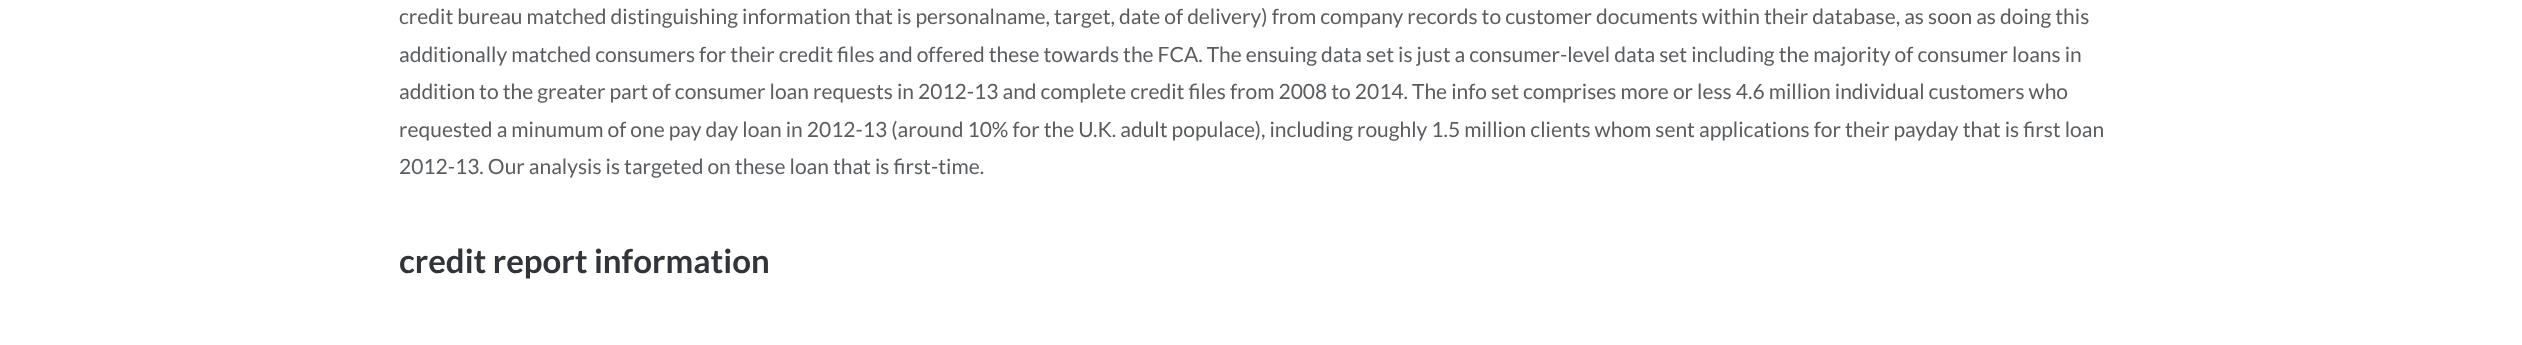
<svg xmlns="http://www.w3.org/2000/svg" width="2522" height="345">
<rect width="100%" height="100%" fill="#fff"/>
<text x="399" y="24" style="font-family:Lato;font-size:21px;fill:#5a5d60">credit bureau matched distinguishing information that is personalname, target, date of delivery) from company records to customer documents within their database, as soon as doing this</text>
<text x="399" y="62" style="font-family:Lato;font-size:21px;fill:#5a5d60">additionally matched consumers for their credit files and offered these towards the FCA. The ensuing data set is just a consumer-level data set including the majority of consumer loans in</text>
<text x="399" y="99" style="font-family:Lato;font-size:21px;fill:#5a5d60">addition to the greater part of consumer loan requests in 2012-13 and complete credit files from 2008 to 2014. The info set comprises more or less 4.6 million individual customers who</text>
<text x="399" y="137" style="font-family:Lato;font-size:21px;fill:#5a5d60">requested a minumum of one pay day loan in 2012-13 (around 10% for the U.K. adult populace), including roughly 1.5 million clients whom sent applications for their payday that is first loan</text>
<text x="399" y="174" style="font-family:Lato;font-size:21px;fill:#5a5d60">2012-13. Our analysis is targeted on these loan that is first-time.</text>
<text x="399" y="273" style="font-family:Lato;font-size:33px;font-weight:bold;fill:#313539">credit report information</text>
</svg>
